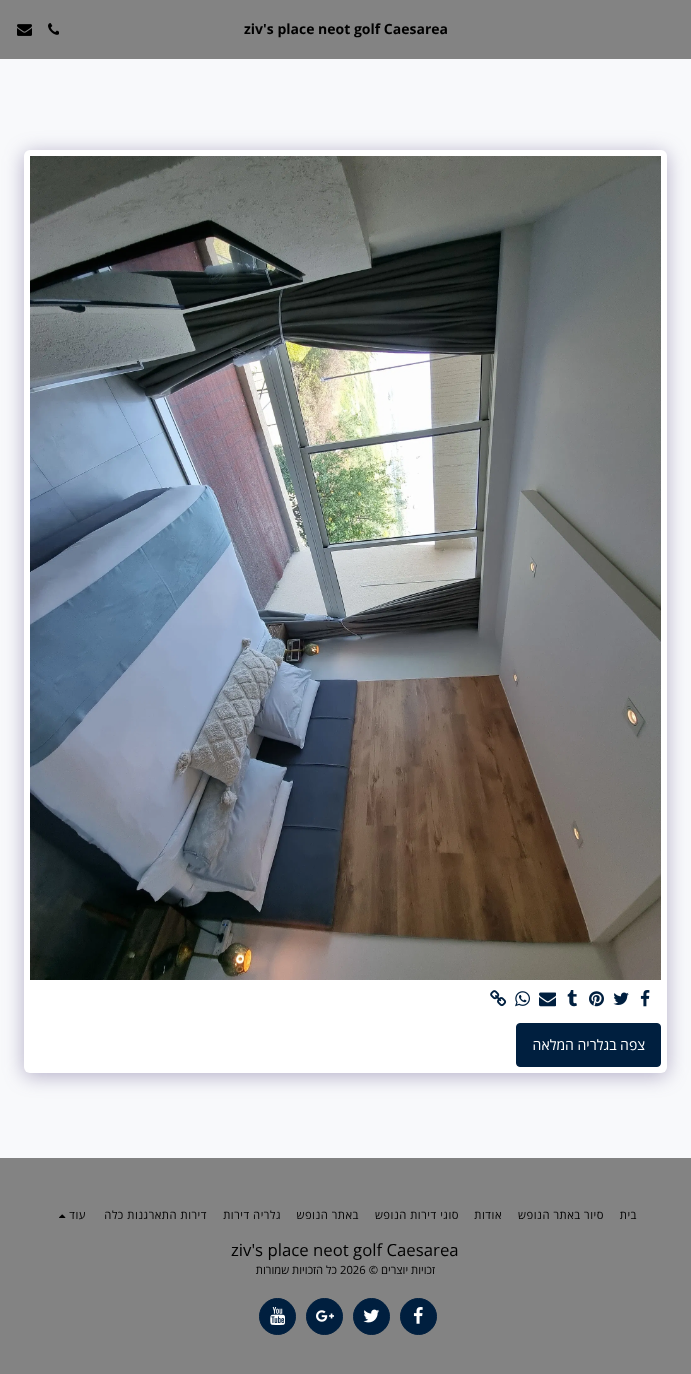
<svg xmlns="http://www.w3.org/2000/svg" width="691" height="1374">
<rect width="100%" height="100%" fill="#f8f9fb"/>
<rect width="691" height="59" fill="#838383"/>
<text x="244" y="34" style="font-family:Open Sans;font-size:14px;font-weight:bold;fill:#000">ziv's place neot golf Caesarea</text>
<image x="48" y="23" width="11" height="12" href="media/1.png"/>
<image x="17" y="24" width="15" height="12" href="media/2.png"/>
<rect x="24" y="153" width="643" height="923" rx="6" fill="#4d3f7a66" filter="blur(10px)"/>
<rect x="24" y="150" width="643" height="923" rx="6" fill="#fff"/>
<image x="30" y="156" width="631" height="824" href="media/3.png"/>
<image x="640" y="990" width="10" height="17" href="media/4.png"/>
<image x="613" y="992" width="16" height="13" href="media/5.png"/>
<image x="589" y="991" width="15" height="16" href="media/6.png"/>
<image x="567" y="990" width="10" height="17" href="media/7.png"/>
<image x="539" y="992" width="17" height="15" href="media/8.png"/>
<image x="515" y="991" width="15" height="16" href="media/9.png"/>
<image x="490" y="990" width="17" height="17" href="media/10.png"/>
<rect x="516.5" y="1023.5" width="144" height="43" rx="3.5" fill="#001f3f" stroke="#001f3f"/>
<text x="645" y="1050" style="font-family:Open Sans;font-size:14px;direction:rtl;fill:#fff">צפה בגלריה המלאה</text>
<rect y="1158" width="691" height="216" fill="#838383"/>
<text x="637" y="1219" style="font-family:Open Sans;font-size:11.25px;letter-spacing:0.5px;direction:rtl;fill:#000">בית</text>
<text x="604" y="1219" style="font-family:Open Sans;font-size:11.25px;letter-spacing:0.5px;direction:rtl;fill:#000">סיור באתר הנופש</text>
<text x="502" y="1219" style="font-family:Open Sans;font-size:11.25px;letter-spacing:0.5px;direction:rtl;fill:#000">אודות</text>
<text x="459" y="1219" style="font-family:Open Sans;font-size:11.25px;letter-spacing:0.5px;direction:rtl;fill:#000">סוגי דירות הנופש</text>
<text x="359" y="1219" style="font-family:Open Sans;font-size:11.25px;letter-spacing:0.5px;direction:rtl;fill:#000">באתר הנופש</text>
<text x="281" y="1219" style="font-family:Open Sans;font-size:11.25px;letter-spacing:0.5px;direction:rtl;fill:#000">גלריה דירות</text>
<text x="207" y="1219" style="font-family:Open Sans;font-size:11.25px;letter-spacing:0.5px;direction:rtl;fill:#000">דירות התארגנות כלה</text>
<text x="86" y="1219" style="font-family:Open Sans;font-size:11.25px;letter-spacing:0.5px;direction:rtl;fill:#000">עוד</text>
<image x="59" y="1214" width="7" height="4" href="media/11.png"/>
<text x="231" y="1256" style="font-family:Open Sans;font-size:16.75px;fill:#000">ziv's place neot golf Caesarea</text>
<text x="435" y="1274" style="font-family:Open Sans;font-size:11.25px;direction:rtl;fill:#000">זכויות יוצרים ©</text>
<text x="340" y="1274" style="font-family:Open Sans;font-size:11.25px;fill:#000">2026</text>
<text x="337" y="1274" style="font-family:Open Sans;font-size:11.25px;direction:rtl;fill:#000">כל הזכויות שמורות</text>
<circle cx="418.5" cy="1316.5" r="18" fill="#001f3f" stroke="#001f3f"/>
<image x="413" y="1307" width="10" height="17" href="media/12.png"/>
<circle cx="371.5" cy="1316.5" r="18" fill="#001f3f" stroke="#001f3f"/>
<image x="363" y="1309" width="17" height="14" href="media/13.png"/>
<circle cx="324.5" cy="1316.5" r="18" fill="#001f3f" stroke="#001f3f"/>
<image x="316" y="1310" width="18" height="12" href="media/14.png"/>
<circle cx="277.5" cy="1316.5" r="18" fill="#001f3f" stroke="#001f3f"/>
<image x="270" y="1307" width="15" height="18" href="media/15.png"/>
</svg>
